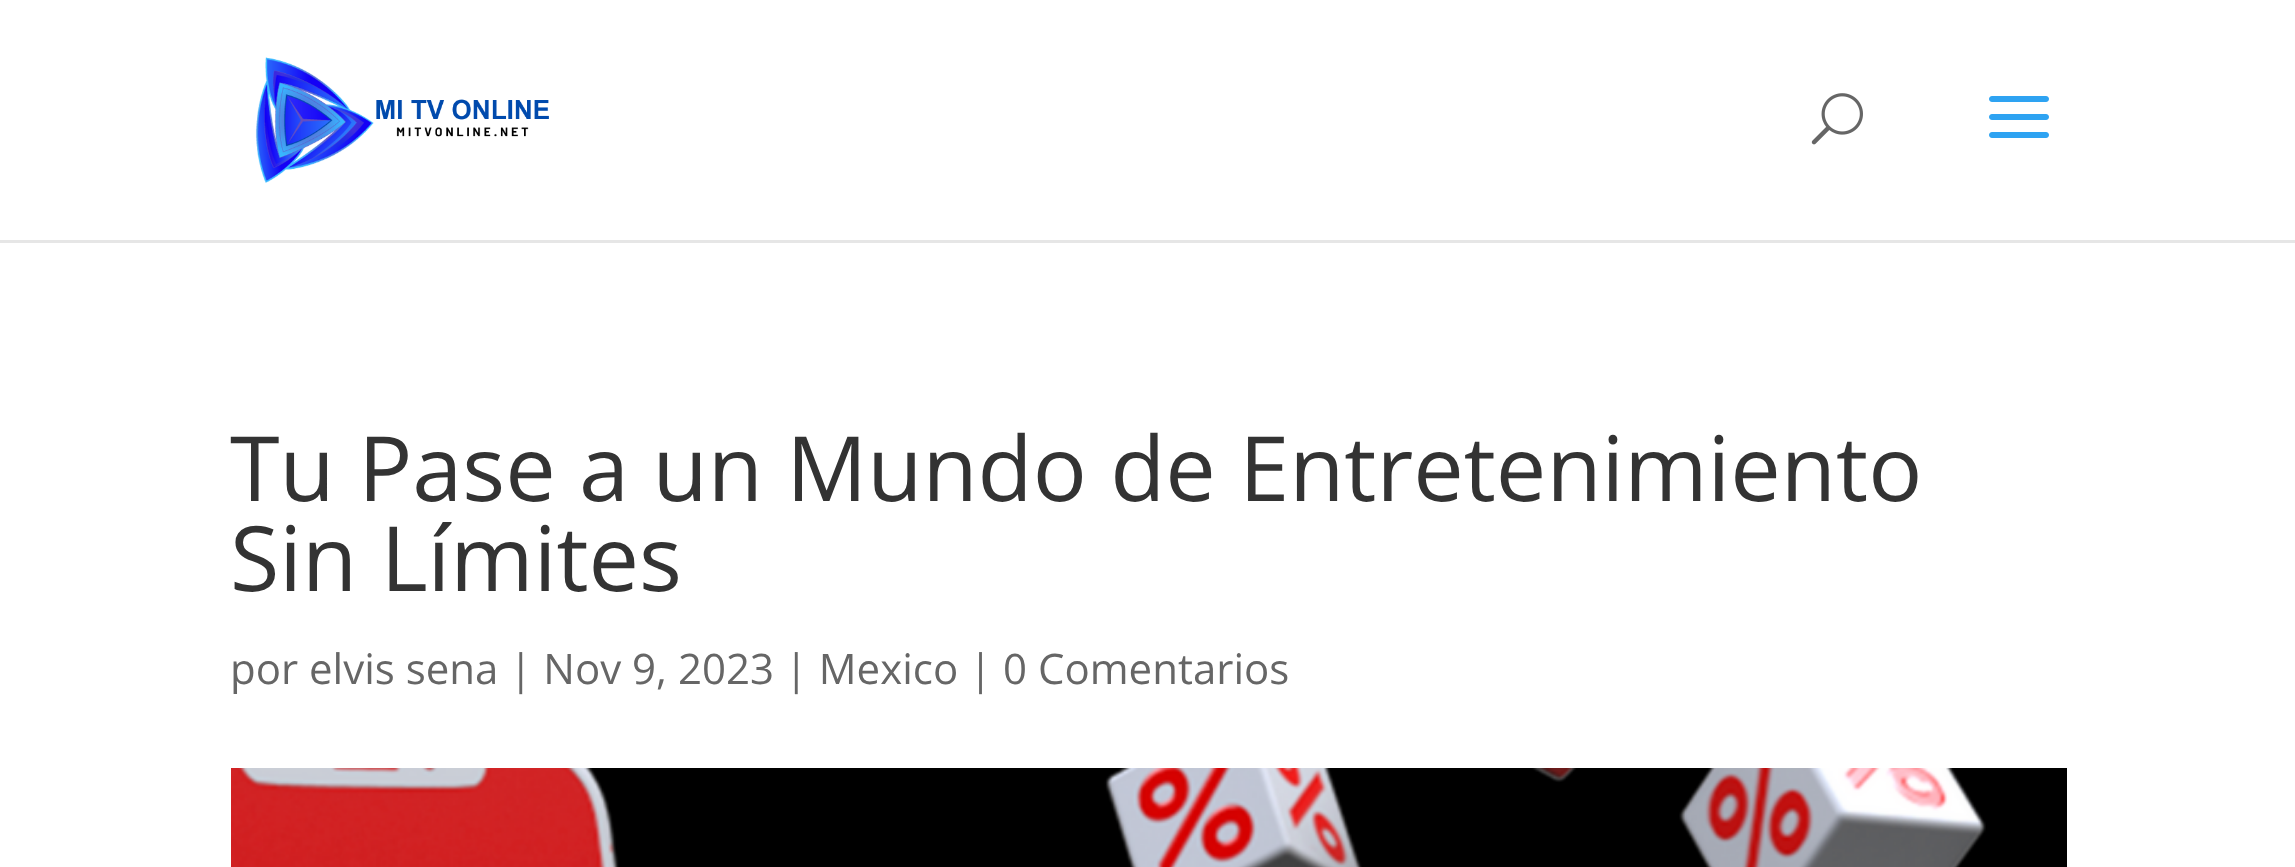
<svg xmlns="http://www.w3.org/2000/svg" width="2295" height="867">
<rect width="100%" height="100%" fill="#fff"/>
<rect y="240" width="2295" height="3" fill="#e6e6e6"/>
<image x="255" y="57" width="294" height="126" href="media/1.png"/>
<image x="1811" y="93" width="52" height="52" href="media/2.png"/>
<image x="1989" y="96" width="60" height="42" href="media/3.png"/>
<text x="230" y="501" style="font-family:Open Sans;font-size:90px;fill:#333">Tu Pase a un Mundo de Entretenimiento</text>
<text x="230" y="591" style="font-family:Open Sans;font-size:90px;fill:#333">Sin Límites</text>
<text x="230" y="684" style="font-family:Open Sans;font-size:42px;fill:#666">por elvis sena | Nov 9, 2023 | Mexico | 0 Comentarios</text>
<image x="231" y="768" width="1836" height="99" href="media/4.png"/>
</svg>
